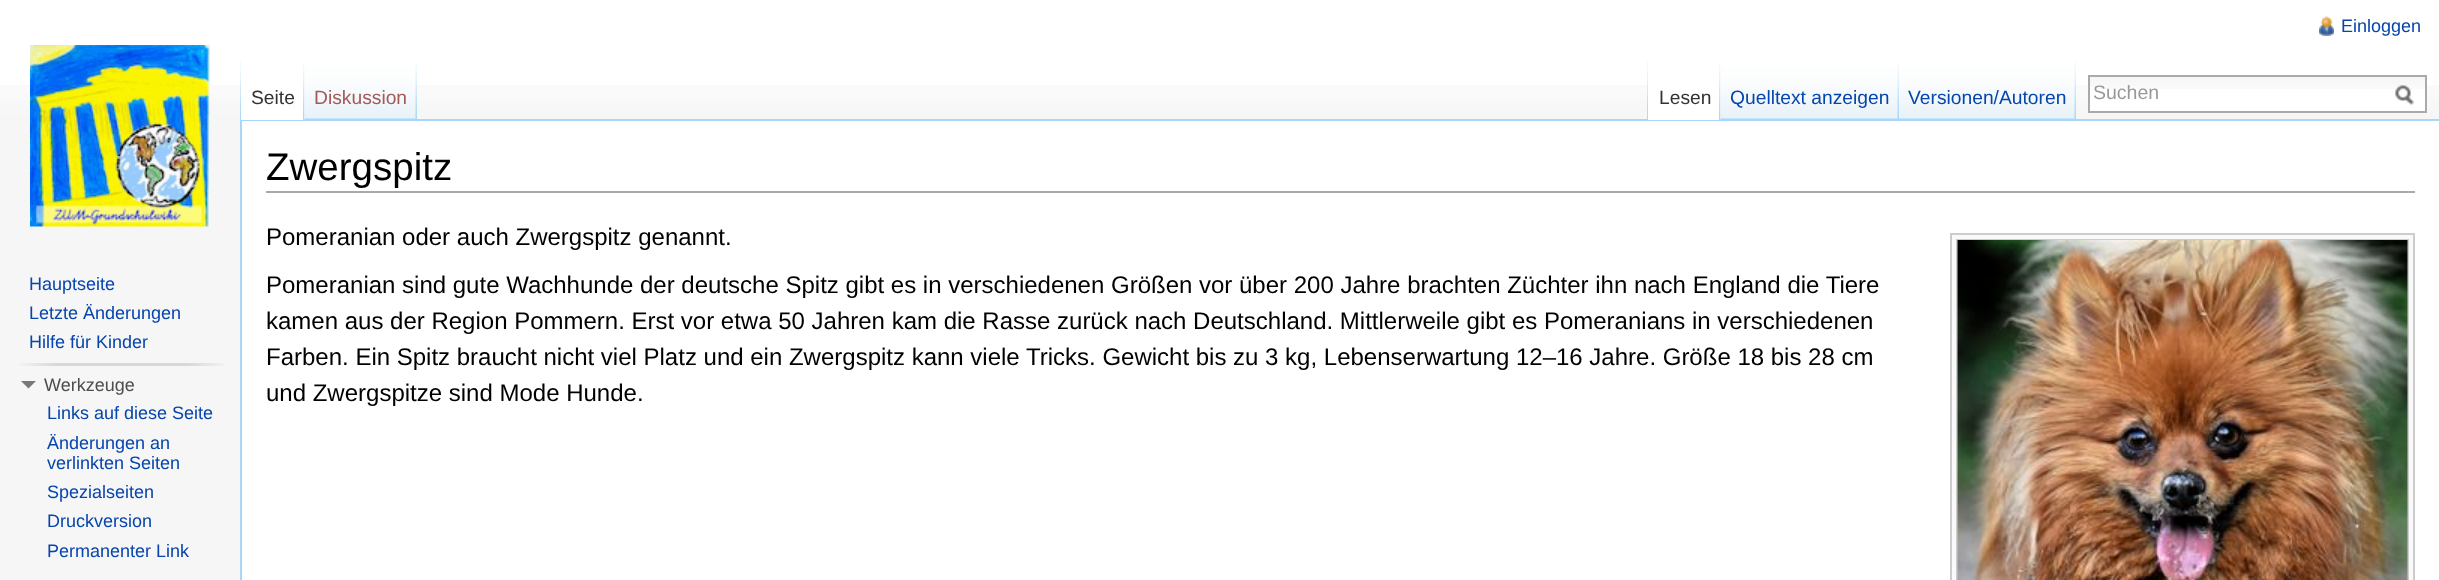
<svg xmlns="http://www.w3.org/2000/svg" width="2439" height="580">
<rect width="100%" height="100%" fill="#f6f6f6"/>
<rect width="2439" height="85" fill="#fff"/>
<image x="0" y="85" width="2439" height="35" href="media/1.png"/>
<image x="2319" y="16" width="15" height="20" href="media/2.png"/>
<text x="2341" y="32" style="font-family:Liberation Sans;font-size:18px;fill:#0645ad">Einloggen</text>
<image x="240" y="60" width="1" height="59" href="media/3.png"/>
<rect x="240" y="119" width="2199" height="2" fill="#a7d7f9"/>
<rect x="240" y="119" width="2" height="461" fill="#a7d7f9"/>
<rect x="241" y="85" width="64" height="35" fill="#fff"/>
<image x="303" y="61" width="2" height="59" href="media/4.png"/>
<text x="251" y="104" style="font-family:Liberation Sans;font-size:19.25px;fill:#333">Seite</text>
<image x="304" y="60" width="113" height="60" href="media/5.png"/>
<image x="415" y="61" width="2" height="58" href="media/6.png"/>
<text x="314" y="104" style="font-family:Liberation Sans;font-size:19.25px;fill:#a55858">Diskussion</text>
<image x="1647" y="60" width="1" height="59" href="media/3.png"/>
<rect x="1648" y="85" width="73" height="35" fill="#fff"/>
<image x="1719" y="61" width="2" height="59" href="media/4.png"/>
<text x="1659" y="104" style="font-family:Liberation Sans;font-size:19.25px;fill:#333">Lesen</text>
<image x="1720" y="60" width="179" height="60" href="media/7.png"/>
<image x="1897" y="61" width="2" height="58" href="media/6.png"/>
<text x="1730" y="104" style="font-family:Liberation Sans;font-size:19.25px;fill:#0645ad">Quelltext anzeigen</text>
<image x="1899" y="60" width="177" height="60" href="media/8.png"/>
<image x="2074" y="61" width="2" height="58" href="media/6.png"/>
<text x="1908" y="104" style="font-family:Liberation Sans;font-size:19.25px;fill:#0645ad">Versionen/Autoren</text>
<rect x="2090" y="89" width="335" height="22" fill="#fff"/>
<image x="2090" y="77" width="335" height="12" href="media/9.png"/>
<rect x="2089" y="76" width="337" height="36" fill="none" stroke="#aaa" stroke-width="2"/>
<text x="2093" y="99" style="font-family:Liberation Sans;font-size:19.5px;fill:#999">Suchen</text>
<image x="2395" y="85" width="19" height="20" href="media/10.png"/>
<image x="30" y="45" width="180" height="182" href="media/11.png"/>
<text x="29" y="290" style="font-family:Liberation Sans;font-size:18px;fill:#0645ad">Hauptseite</text>
<text x="29" y="319" style="font-family:Liberation Sans;font-size:18px;fill:#0645ad">Letzte Änderungen</text>
<text x="29" y="348" style="font-family:Liberation Sans;font-size:18px;fill:#0645ad">Hilfe für Kinder</text>
<image x="20" y="363" width="204" height="3" href="media/12.png"/>
<path d="M36 381l-7.5 7.5l-7.5-7.5z" fill="#797979"/>
<text x="44" y="391" style="font-family:Liberation Sans;font-size:18px;fill:#4d4d4d">Werkzeuge</text>
<text x="47" y="419" style="font-family:Liberation Sans;font-size:18px;fill:#0645ad">Links auf diese Seite</text>
<text x="47" y="449" style="font-family:Liberation Sans;font-size:18px;fill:#0645ad">Änderungen an</text>
<text x="47" y="469" style="font-family:Liberation Sans;font-size:18px;fill:#0645ad">verlinkten Seiten</text>
<text x="47" y="498" style="font-family:Liberation Sans;font-size:18px;fill:#0645ad">Spezialseiten</text>
<text x="47" y="527" style="font-family:Liberation Sans;font-size:18px;fill:#0645ad">Druckversion</text>
<text x="47" y="557" style="font-family:Liberation Sans;font-size:18px;fill:#0645ad">Permanenter Link</text>
<rect x="242" y="121" width="2197" height="459" fill="#fff"/>
<rect x="266" y="191" width="2149" height="2" fill="#aaa"/>
<text x="266" y="180" style="font-family:Liberation Sans;font-size:38.5px;fill:#000">Zwergspitz</text>
<text x="266" y="245" style="font-family:Liberation Sans;font-size:24px;fill:#000">Pomeranian oder auch Zwergspitz genannt.</text>
<rect x="1951" y="234" width="463" height="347" fill="#f9f9f9" stroke="#ccc" stroke-width="2"/>
<rect x="1957" y="240" width="451" height="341" fill="none" stroke="#ccc" stroke-width="2"/>
<image x="1957" y="240" width="451" height="340" href="media/13.png"/>
<text x="266" y="293" style="font-family:Liberation Sans;font-size:24px;fill:#000">Pomeranian sind gute Wachhunde der deutsche Spitz gibt es in verschiedenen Größen vor über 200 Jahre brachten Züchter ihn nach England die Tiere</text>
<text x="266" y="329" style="font-family:Liberation Sans;font-size:24px;fill:#000">kamen aus der Region Pommern. Erst vor etwa 50 Jahren kam die Rasse zurück nach Deutschland. Mittlerweile gibt es Pomeranians in verschiedenen</text>
<text x="266" y="365" style="font-family:Liberation Sans;font-size:24px;fill:#000">Farben. Ein Spitz braucht nicht viel Platz und ein Zwergspitz kann viele Tricks. Gewicht bis zu 3 kg, Lebenserwartung 12–16 Jahre. Größe 18 bis 28 cm</text>
<text x="266" y="401" style="font-family:Liberation Sans;font-size:24px;fill:#000">und Zwergspitze sind Mode Hunde.</text>
</svg>
